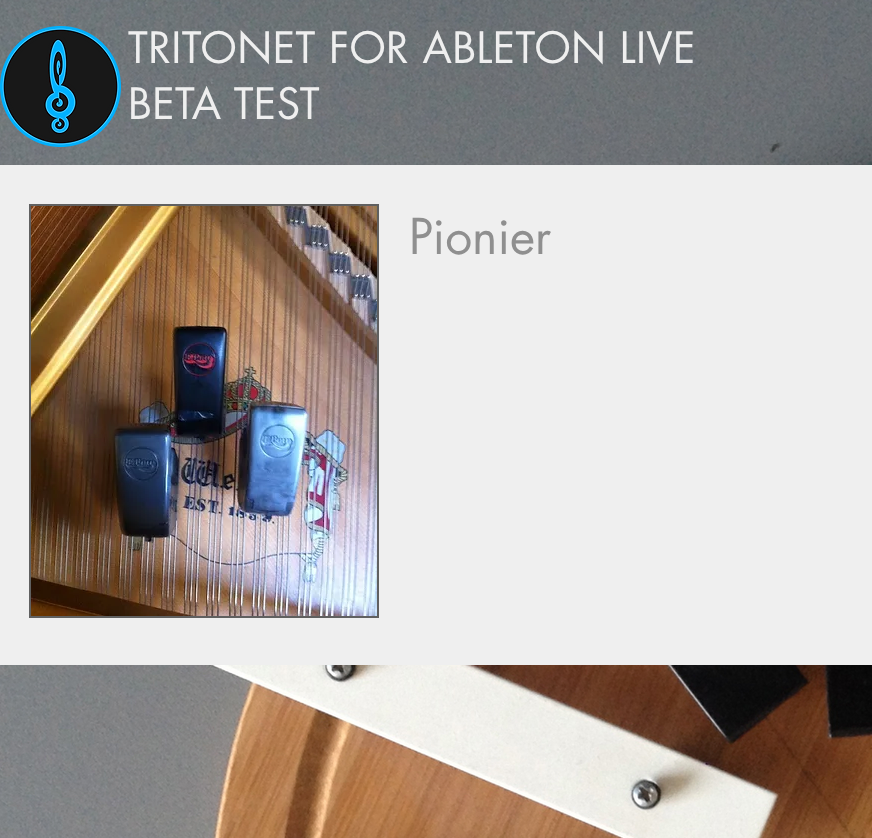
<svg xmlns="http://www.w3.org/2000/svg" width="872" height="838">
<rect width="100%" height="100%" fill="#fff"/>
<image x="0" y="0" width="872" height="838" href="media/1.png"/>
<image x="0" y="26" width="121" height="121" href="media/2.png"/>
<text x="128" y="63" style="font-family:futura;font-size:42px;letter-spacing:0.4px;fill:#efefef">TRITONET FOR ABLETON LIVE</text>
<text x="128" y="119" style="font-family:futura;font-size:42px;letter-spacing:0.4px;fill:#efefef">BETA TEST</text>
<rect y="165" width="872" height="500" fill="#efefef"/>
<rect x="29" y="204" width="350" height="414" fill="#606060"/>
<image x="31" y="206" width="346" height="410" href="media/3.png"/>
<text x="409" y="254" style="font-family:futura;font-size:48px;fill:#8f8f8f">Pionier</text>
</svg>
